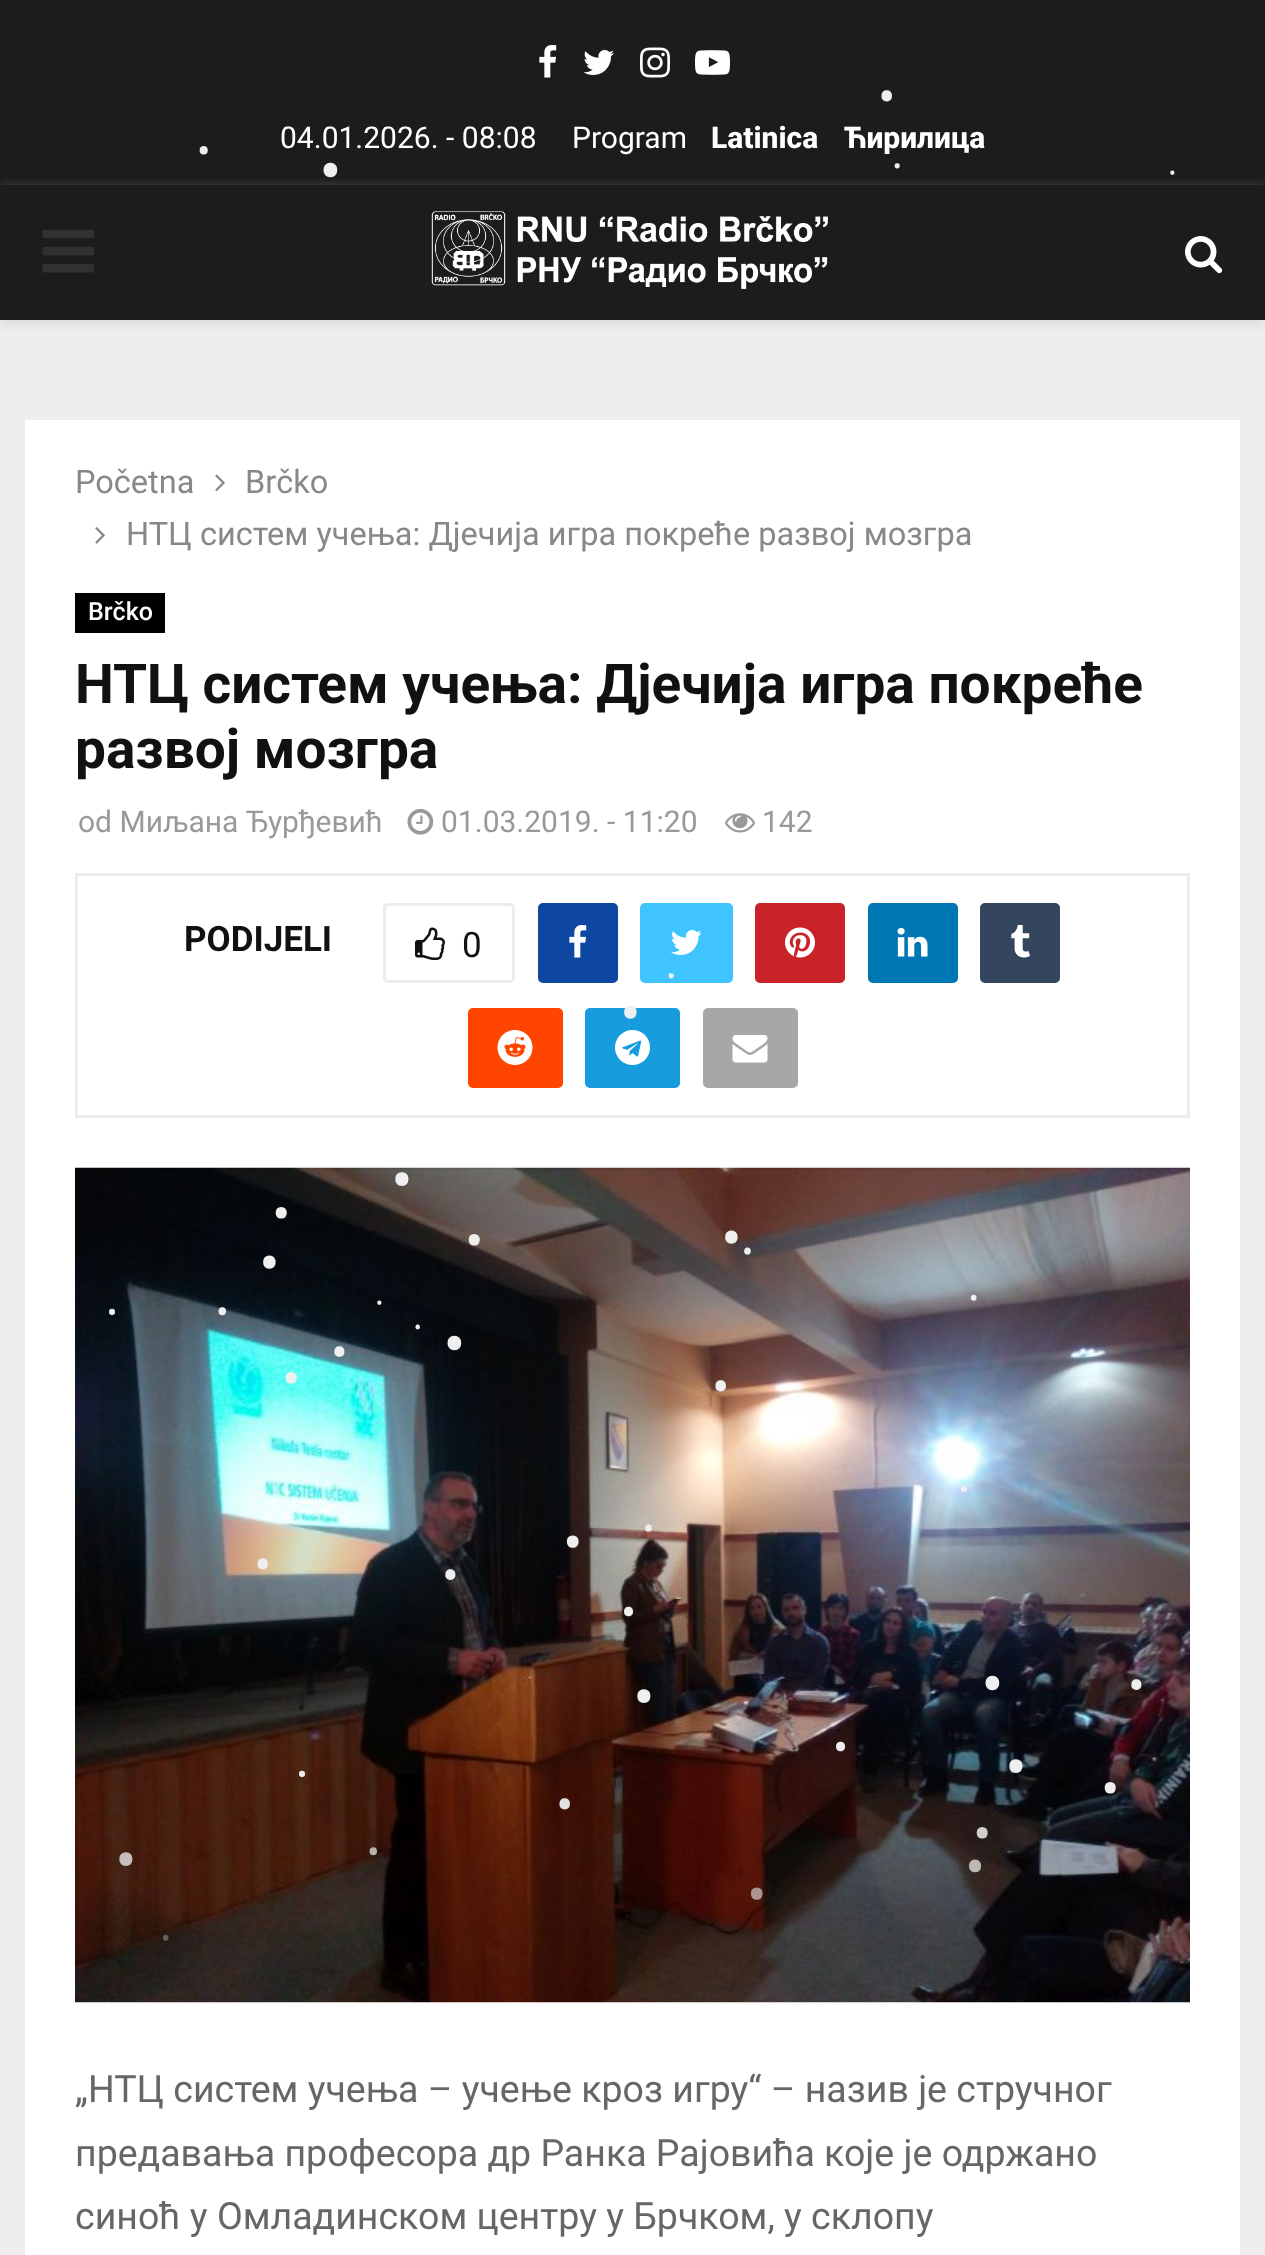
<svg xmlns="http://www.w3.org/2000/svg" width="1265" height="2255">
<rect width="100%" height="100%" fill="#eee"/>
<rect width="1265" height="185" fill="#1c1c1c"/>
<text x="878" y="115" style="font-family:Roboto;font-size:52px;fill:#efefef">•</text>
<text x="197" y="165" style="font-family:Roboto;font-size:40px;fill:#efefef">•</text>
<text x="319" y="195" style="font-family:Roboto;font-size:68px;fill:#efefef">•</text>
<text x="893" y="175" style="font-family:Roboto;font-size:25px;fill:#efefef">•</text>
<text x="1169" y="180" style="font-family:Roboto;font-size:20px;fill:#efefef">•</text>
<rect x="25" y="420" width="1215" height="1835" fill="#fff"/>
<rect x="76.5" y="874.5" width="1112" height="242" fill="none" stroke="#ececec" stroke-width="3"/>
<rect x="640" y="903" width="93" height="80" rx="5" fill="#40c4ff"/>
<text x="667" y="985" style="font-family:Roboto;font-size:25px;fill:#efefef">•</text>
<rect x="585" y="1008" width="95" height="80" rx="5" fill="#179cde"/>
<text x="620" y="1035" style="font-family:Roboto;font-size:62px;fill:#efefef">•</text>
<image x="75" y="1167" width="1115" height="836" href="media/21.png"/>
<text x="391" y="1203" style="font-family:Roboto;font-size:65px;fill:#efefef">•</text>
<text x="272" y="1233" style="font-family:Roboto;font-size:55px;fill:#efefef">•</text>
<text x="465" y="1260" style="font-family:Roboto;font-size:55px;fill:#efefef">•</text>
<text x="721" y="1260" style="font-family:Roboto;font-size:62px;fill:#efefef">•</text>
<text x="742" y="1263" style="font-family:Roboto;font-size:32.5px;fill:#efefef">•</text>
<text x="259" y="1285" style="font-family:Roboto;font-size:62px;fill:#efefef">•</text>
<text x="969" y="1308" style="font-family:Roboto;font-size:28px;fill:#efefef">•</text>
<text x="376" y="1310" style="font-family:Roboto;font-size:20px;fill:#efefef">•</text>
<text x="107" y="1323" style="font-family:Roboto;font-size:30px;fill:#efefef">•</text>
<text x="216" y="1325" style="font-family:Roboto;font-size:37.5px;fill:#efefef">•</text>
<text x="414" y="1335" style="font-family:Roboto;font-size:22px;fill:#efefef">•</text>
<text x="331" y="1370" style="font-family:Roboto;font-size:50px;fill:#efefef">•</text>
<text x="443" y="1368" style="font-family:Roboto;font-size:68px;fill:#efefef">•</text>
<text x="282" y="1398" style="font-family:Roboto;font-size:55px;fill:#efefef">•</text>
<text x="712" y="1405" style="font-family:Roboto;font-size:52px;fill:#efefef">•</text>
<text x="959" y="1500" style="font-family:Roboto;font-size:30px;fill:#efefef">•</text>
<text x="643" y="1540" style="font-family:Roboto;font-size:32.5px;fill:#efefef">•</text>
<text x="563" y="1563" style="font-family:Roboto;font-size:58px;fill:#efefef">•</text>
<text x="254" y="1583" style="font-family:Roboto;font-size:52px;fill:#efefef">•</text>
<text x="442" y="1593" style="font-family:Roboto;font-size:50px;fill:#efefef">•</text>
<text x="621" y="1628" style="font-family:Roboto;font-size:45px;fill:#efefef">•</text>
<text x="981" y="1708" style="font-family:Roboto;font-size:68px;fill:#efefef">•</text>
<text x="1128" y="1703" style="font-family:Roboto;font-size:50px;fill:#efefef">•</text>
<text x="633" y="1720" style="font-family:Roboto;font-size:65px;fill:#efefef">•</text>
<text x="833" y="1763" style="font-family:Roboto;font-size:45px;fill:#efefef">•</text>
<text x="1005" y="1790" style="font-family:Roboto;font-size:65px;fill:#efefef">•</text>
<text x="297" y="1785" style="font-family:Roboto;font-size:30px;fill:#efefef">•</text>
<text x="1101" y="1808" style="font-family:Roboto;font-size:55px;fill:#efefef">•</text>
<text x="556" y="1823" style="font-family:Roboto;font-size:52px;fill:#e4e2e1">•</text>
<text x="973" y="1853" style="font-family:Roboto;font-size:55px;fill:#cfcdcd">•</text>
<text x="115" y="1883" style="font-family:Roboto;font-size:65px;fill:#c6beba">•</text>
<text x="367" y="1865" style="font-family:Roboto;font-size:37.5px;fill:#bab1af">•</text>
<text x="965" y="1888" style="font-family:Roboto;font-size:60px;fill:#bbb7b5">•</text>
<text x="747" y="1915" style="font-family:Roboto;font-size:58px;fill:#ae9590">•</text>
<text x="161" y="1948" style="font-family:Roboto;font-size:28px;fill:#68605d">•</text>
<image x="539" y="45" width="18" height="33" href="media/1.png"/>
<image x="583" y="50" width="31" height="25" href="media/2.png"/>
<image x="640" y="47" width="30" height="31" href="media/3.png"/>
<image x="695" y="50" width="35" height="25" href="media/4.png"/>
<text x="280" y="148" style="font-family:Roboto;font-size:30px;fill:#fff">04.01.2026. - 08:08</text>
<text x="572" y="148" style="font-family:Roboto;font-size:30px;fill:#fff">Program</text>
<text x="711" y="148" style="font-family:Roboto;font-size:30px;font-weight:800;fill:#fff">Latinica</text>
<text x="844" y="148" style="font-family:Roboto;font-size:30px;font-weight:800;fill:#fff">Ћирилица</text>
<rect y="188" width="1265" height="135" fill="#bebebe75" filter="blur(6px)"/>
<rect y="185" width="1265" height="135" fill="#1c1c1c"/>
<image x="42" y="229" width="52" height="44" href="media/5.png"/>
<image x="431" y="211" width="397" height="79" href="media/6.png"/>
<image x="1185" y="236" width="38" height="38" href="media/7.png"/>
<text x="75" y="493" style="font-family:Roboto;font-size:32.5px;fill:#888">Početna</text>
<image x="215" y="474" width="10" height="18" href="media/8.png"/>
<text x="245" y="493" style="font-family:Roboto;font-size:32.5px;fill:#888">Brčko</text>
<image x="95" y="527" width="10" height="17" href="media/9.png"/>
<text x="126" y="545" style="font-family:Roboto;font-size:32.5px;fill:#888">НТЦ систем учења: Дјечија игра покреће развој мозгра</text>
<rect x="75" y="593" width="90" height="40" fill="#000"/>
<text x="88" y="620" style="font-family:Roboto;font-size:25px;font-weight:500;fill:#fff">Brčko</text>
<text x="75" y="703" style="font-family:Roboto;font-size:55px;font-weight:bold;fill:#111">НТЦ систем учења: Дјечија игра покреће</text>
<text x="75" y="768" style="font-family:Roboto;font-size:55px;font-weight:bold;fill:#111">развој мозгра</text>
<text x="78" y="832" style="font-family:Roboto;font-size:30px;fill:#999">od Миљана Ђурђевић</text>
<image x="407" y="808" width="27" height="27" href="media/10.png"/>
<text x="441" y="832" style="font-family:Roboto;font-size:30px;fill:#999">01.03.2019. - 11:20</text>
<image x="725" y="813" width="30" height="20" href="media/11.png"/>
<text x="762" y="832" style="font-family:Roboto;font-size:30px;fill:#999">142</text>
<text x="184" y="951" style="font-family:Roboto;font-size:35px;font-weight:bold;fill:#111">PODIJELI</text>
<rect x="384.5" y="904.5" width="129" height="77" rx="3.5" fill="none" stroke="#ececec" stroke-width="3"/>
<image x="415" y="927" width="30" height="33" href="media/12.png"/>
<text x="462" y="957" style="font-family:Roboto;font-size:35px;fill:#111">0</text>
<rect x="538" y="903" width="80" height="80" rx="5" fill="#0d47a1"/>
<image x="569" y="925" width="18" height="33" href="media/13.png"/>
<image x="671" y="930" width="31" height="25" href="media/14.png"/>
<rect x="755" y="903" width="90" height="80" rx="5" fill="#c92228"/>
<image x="785" y="927" width="30" height="31" href="media/15.png"/>
<rect x="868" y="903" width="90" height="80" rx="5" fill="#0077b5"/>
<image x="897" y="927" width="31" height="30" href="media/16.png"/>
<rect x="980" y="903" width="80" height="80" rx="5" fill="#34465d"/>
<image x="1011" y="925" width="19" height="33" href="media/17.png"/>
<rect x="468" y="1008" width="95" height="80" rx="5" fill="#ff4500"/>
<image x="497" y="1030" width="36" height="35" href="media/18.png"/>
<image x="615" y="1030" width="35" height="35" href="media/19.png"/>
<rect x="703" y="1008" width="95" height="80" rx="5" fill="#a7a7a7"/>
<image x="732" y="1035" width="36" height="28" href="media/20.png"/>
<text x="75" y="2102" style="font-family:Roboto;font-size:37.5px;fill:#666">„НТЦ систем учења – учење кроз игру“ – назив је стручног</text>
<text x="75" y="2166" style="font-family:Roboto;font-size:37.5px;fill:#666">предавања професора др Ранка Рајовића које је одржано</text>
<text x="75" y="2229" style="font-family:Roboto;font-size:37.5px;fill:#666">синоћ у Омладинском центру у Брчком, у склопу</text>
</svg>
